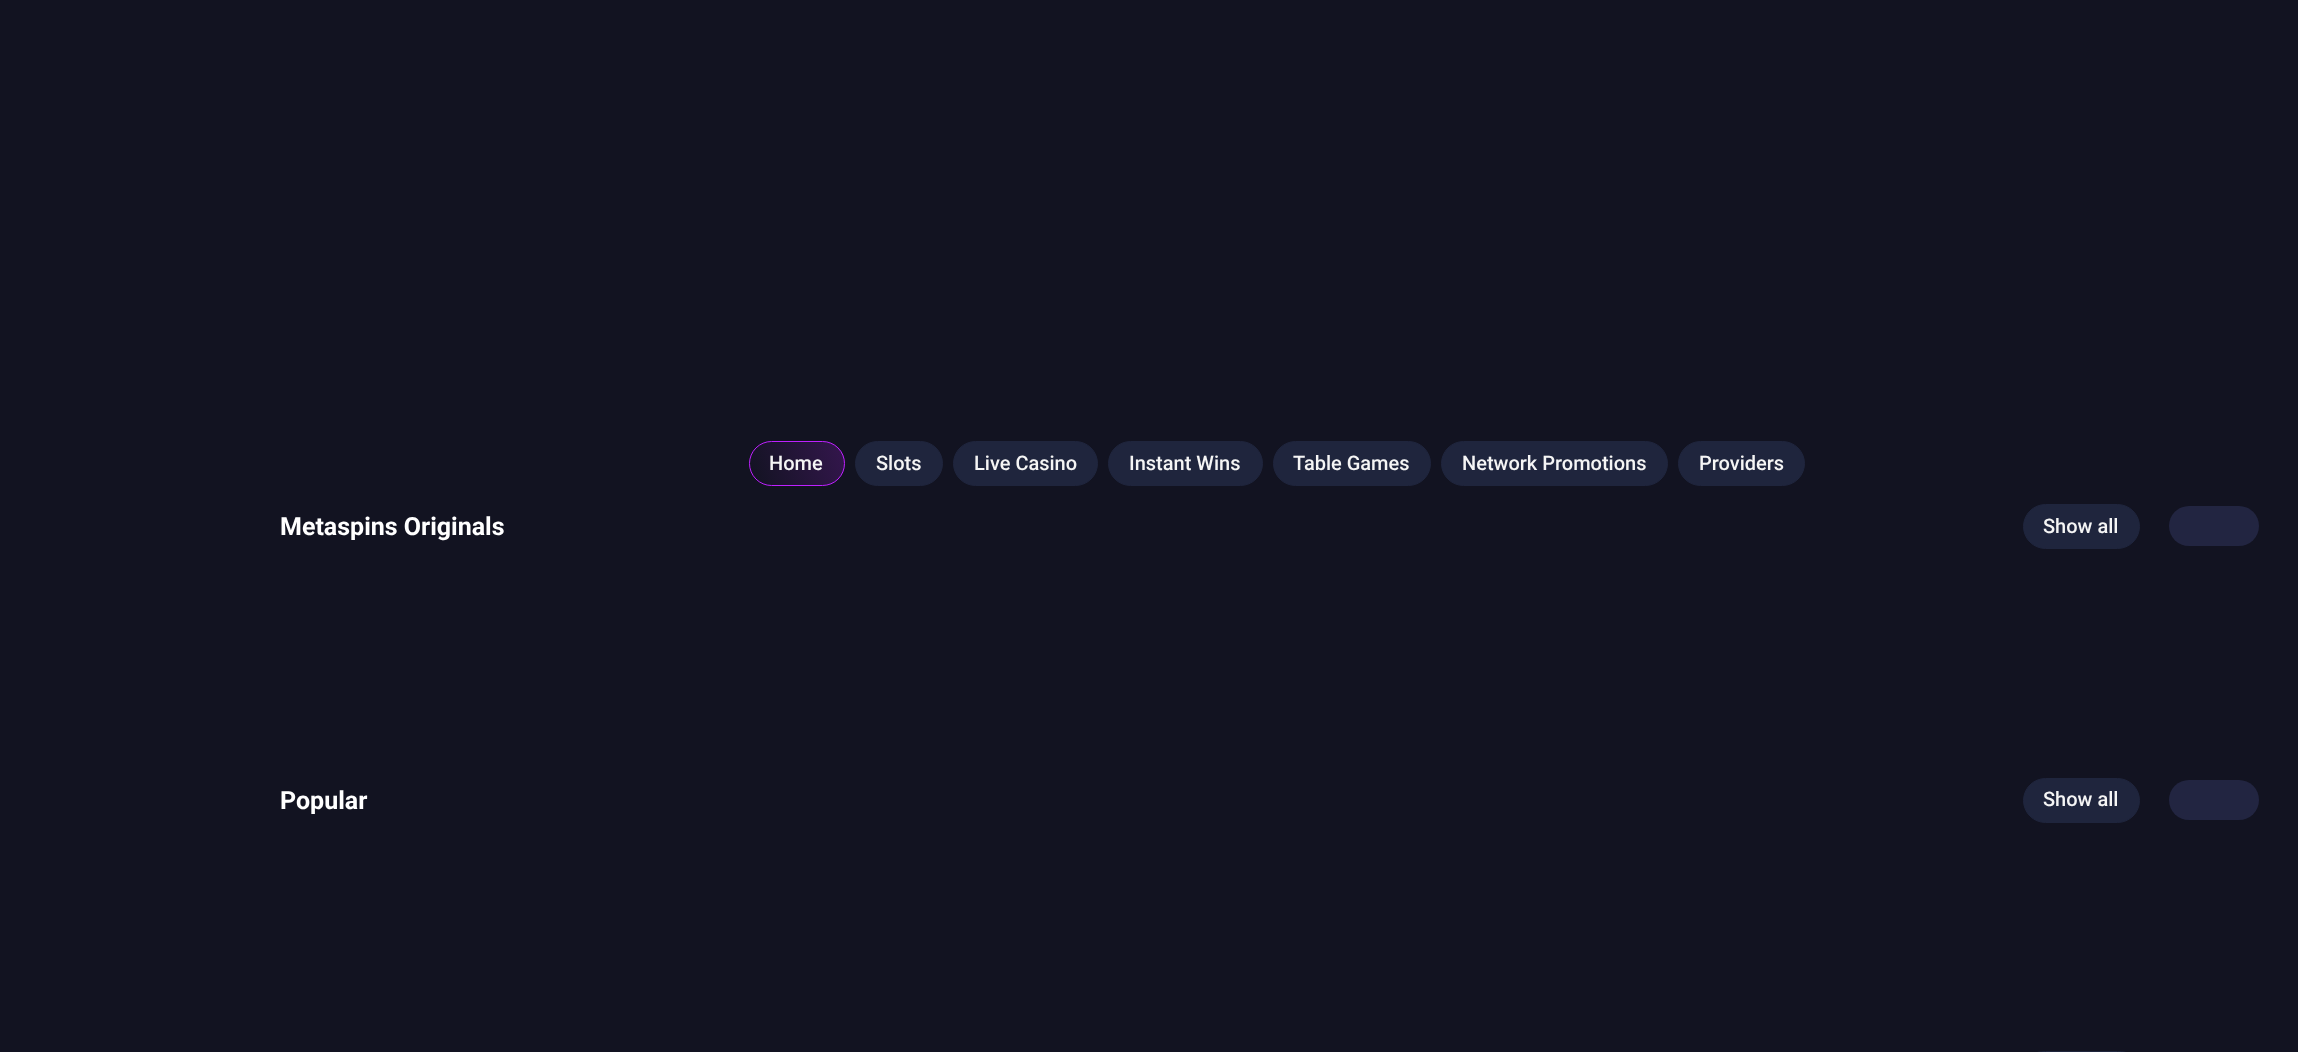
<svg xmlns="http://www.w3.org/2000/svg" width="2298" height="1052">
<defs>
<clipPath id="clip1"><rect x="749" y="441" width="96" height="45" rx="22.5"/></clipPath>
<linearGradient id="g1" gradientUnits="userSpaceOnUse" x1="749" y1="440" x2="845" y2="403"><stop offset="0" stop-color="#121321"/><stop offset="1" stop-color="#34164d"/></linearGradient>
<linearGradient id="g2" gradientUnits="userSpaceOnUse" x1="749" y1="482" x2="845" y2="445"><stop offset="0" stop-color="#121321"/><stop offset="1" stop-color="#34164d"/></linearGradient>
</defs>
<rect width="100%" height="100%" fill="#121321"/>
<g clip-path="url(#clip1)">
<rect x="762" y="441" width="70" height="2" fill="url(#g1)"/>
<rect x="750" y="443" width="94" height="42" fill="url(#g2)"/>
</g>
<rect x="749.5" y="441.5" width="95" height="44" rx="22" fill="none" stroke="#be20ff"/>
<text x="769" y="470" style="font-family:Roboto;font-size:20px;font-weight:500;fill:#f5f5f5">Home</text>
<rect x="855.5" y="441.5" width="87" height="44" rx="22" fill="#1f253d" stroke="#1f253d"/>
<text x="876" y="470" style="font-family:Roboto;font-size:20px;font-weight:500;fill:#f5f5f5">Slots</text>
<rect x="953.5" y="441.5" width="144" height="44" rx="22" fill="#1f253d" stroke="#1f253d"/>
<text x="974" y="470" style="font-family:Roboto;font-size:20px;font-weight:500;fill:#f5f5f5">Live Casino</text>
<rect x="1108.5" y="441.5" width="154" height="44" rx="22" fill="#1f253d" stroke="#1f253d"/>
<text x="1129" y="470" style="font-family:Roboto;font-size:20px;font-weight:500;fill:#f5f5f5">Instant Wins</text>
<rect x="1273.5" y="441.5" width="157" height="44" rx="22" fill="#1f253d" stroke="#1f253d"/>
<text x="1293" y="470" style="font-family:Roboto;font-size:20px;font-weight:500;fill:#f5f5f5">Table Games</text>
<rect x="1441.5" y="441.5" width="226" height="44" rx="22" fill="#1f253d" stroke="#1f253d"/>
<text x="1462" y="470" style="font-family:Roboto;font-size:20px;font-weight:500;fill:#f5f5f5">Network Promotions</text>
<rect x="1678.5" y="441.5" width="126" height="44" rx="22" fill="#1f253d" stroke="#1f253d"/>
<text x="1699" y="470" style="font-family:Roboto;font-size:20px;font-weight:500;fill:#f5f5f5">Providers</text>
<text x="280" y="535" style="font-family:Roboto;font-size:25px;font-weight:bold;fill:#fff">Metaspins Originals</text>
<rect x="2023.5" y="504.5" width="116" height="44" rx="22" fill="#1f253d" stroke="#1f253d"/>
<text x="2043" y="533" style="font-family:Roboto;font-size:20px;font-weight:500;fill:#f5f5f5">Show all</text>
<rect x="2169" y="506" width="90" height="40" rx="20" fill="#222541"/>
<text x="280" y="809" style="font-family:Roboto;font-size:25px;font-weight:bold;fill:#fff">Popular</text>
<rect x="2023.5" y="778.5" width="116" height="44" rx="22" fill="#1f253d" stroke="#1f253d"/>
<text x="2043" y="806" style="font-family:Roboto;font-size:20px;font-weight:500;fill:#f5f5f5">Show all</text>
<rect x="2169" y="780" width="90" height="40" rx="20" fill="#222541"/>
<rect x="2023.5" y="1051.5" width="116" height="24" rx="22" fill="none" stroke="#1f253d"/>
</svg>
